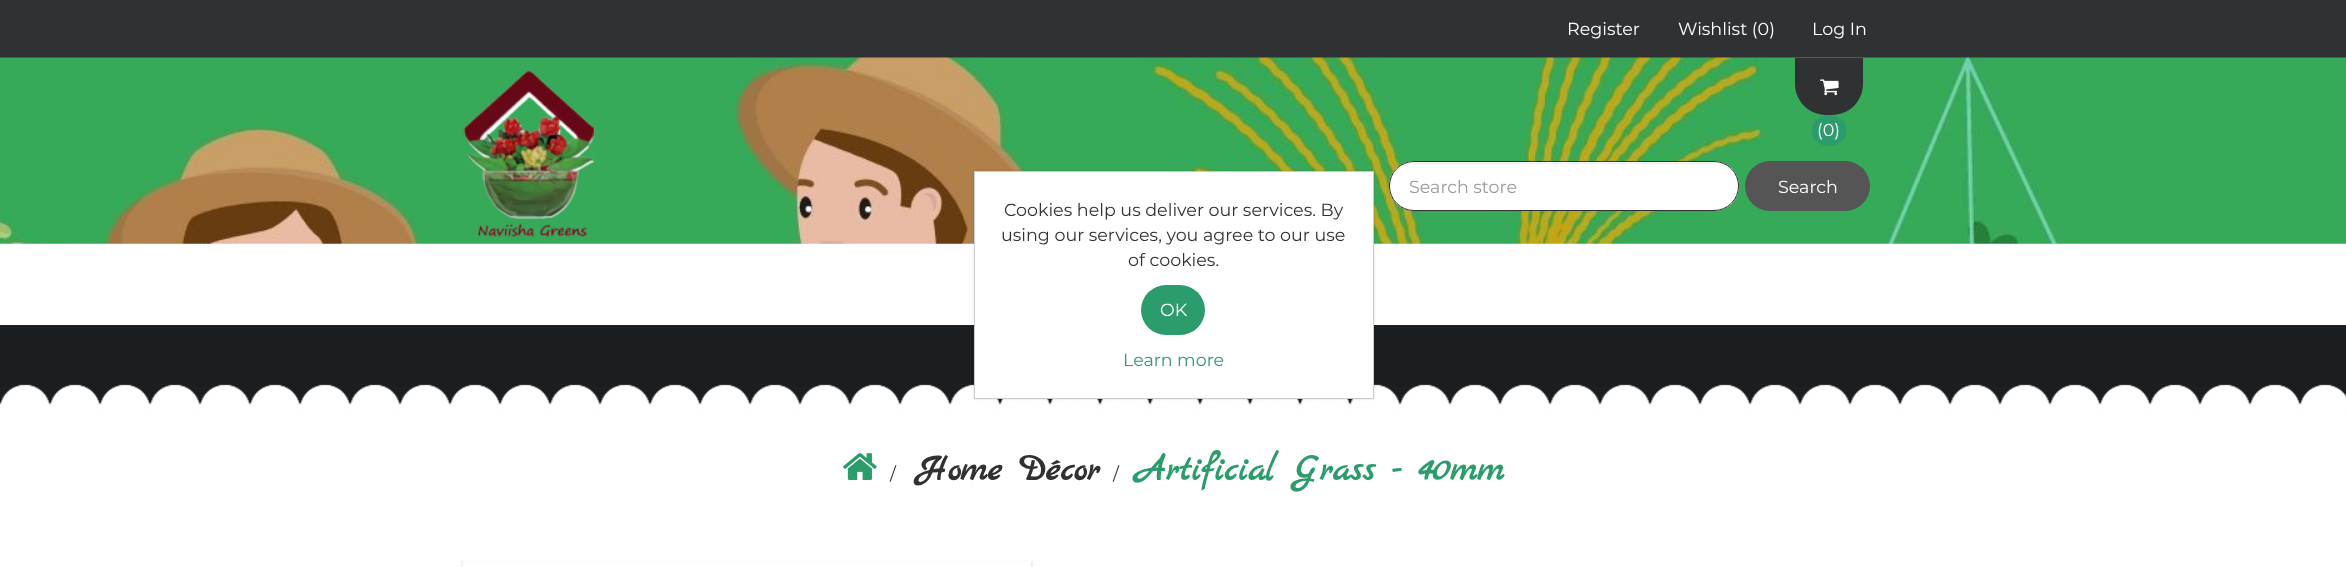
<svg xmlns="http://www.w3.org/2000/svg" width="2346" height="567">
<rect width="100%" height="100%" fill="#fff"/>
<rect width="2346" height="58" fill="#303133"/>
<text x="1567" y="35" style="font-family:Montserrat;font-size:17.5px;fill:#fff">Register</text>
<text x="1678" y="35" style="font-family:Montserrat;font-size:17.5px;fill:#fff">Wishlist (0)</text>
<text x="1812" y="35" style="font-family:Montserrat;font-size:17.5px;fill:#fff">Log In</text>
<image x="0" y="57" width="2346" height="187" href="media/1.png"/>
<path d="M1795 58h68v26c0 17-14 31-31 31h-6c-17 0-31-14-31-31z" fill="#303133"/>
<image x="1820" y="79" width="19" height="17" href="media/2.png"/>
<ellipse cx="1829" cy="130.5" rx="17.5" ry="15.5" fill="#2d9c6d"/>
<text x="1817" y="136" style="font-family:Montserrat;font-size:17.5px;fill:#fff">(0)</text>
<image x="463" y="70" width="133" height="168" href="media/3.png"/>
<rect x="1389" y="161" width="350" height="50" rx="25" fill="#fff"/>
<path d="M1414 164h300c13 0 24 10 24 23c0-13-10-24-24-24h-300c-14 0-24 11-24 24c0-13 11-23 24-23z" fill="#ececec"/>
<rect x="1389.5" y="161.5" width="349" height="49" rx="24.5" fill="none" stroke="#303133"/>
<text x="1409" y="193" style="font-family:Montserrat;font-size:17.5px;fill:#999">Search store</text>
<rect x="1745" y="161" width="125" height="50" rx="25" fill="#555"/>
<text x="1778" y="193" style="font-family:Montserrat;font-size:17.5px;fill:#fff">Search</text>
<image x="0" y="325" width="2346" height="90" href="media/4.png"/>
<image x="843" y="453" width="34" height="27" href="media/5.png"/>
<text x="890" y="480" style="font-family:Montserrat;font-size:17.5px;fill:#303133">/</text>
<text x="917" y="480" style="font-family:Marck Script;font-size:37.5px;font-weight:bold;fill:#303133">Home Décor</text>
<text x="1113" y="480" style="font-family:Montserrat;font-size:17.5px;fill:#303133">/</text>
<text x="1136" y="480" style="font-family:Marck Script;font-size:37.5px;font-weight:bold;fill:#2d9c6d">Artificial Grass - 40mm</text>
<rect x="461" y="561" width="572" height="6" fill="#ededed"/>
<image x="462" y="561" width="569" height="6" href="media/6.png"/>
<rect x="974" y="171" width="400" height="228" fill="#00000026" filter="blur(1px)"/>
<rect x="974.5" y="171.5" width="399" height="227" fill="#fff" stroke="#ccc"/>
<text x="1004" y="216" style="font-family:Montserrat;font-size:17.5px;fill:#303133">Cookies help us deliver our services. By</text>
<text x="1001" y="241" style="font-family:Montserrat;font-size:17.5px;fill:#303133">using our services, you agree to our use</text>
<text x="1128" y="266" style="font-family:Montserrat;font-size:17.5px;fill:#303133">of cookies.</text>
<rect x="1141" y="285" width="64" height="50" rx="25" fill="#2d9c6d"/>
<text x="1160" y="316" style="font-family:Montserrat;font-size:17.5px;fill:#fff">OK</text>
<text x="1123" y="366" style="font-family:Montserrat;font-size:17.5px;fill:#2d9c6d">Learn more</text>
</svg>
